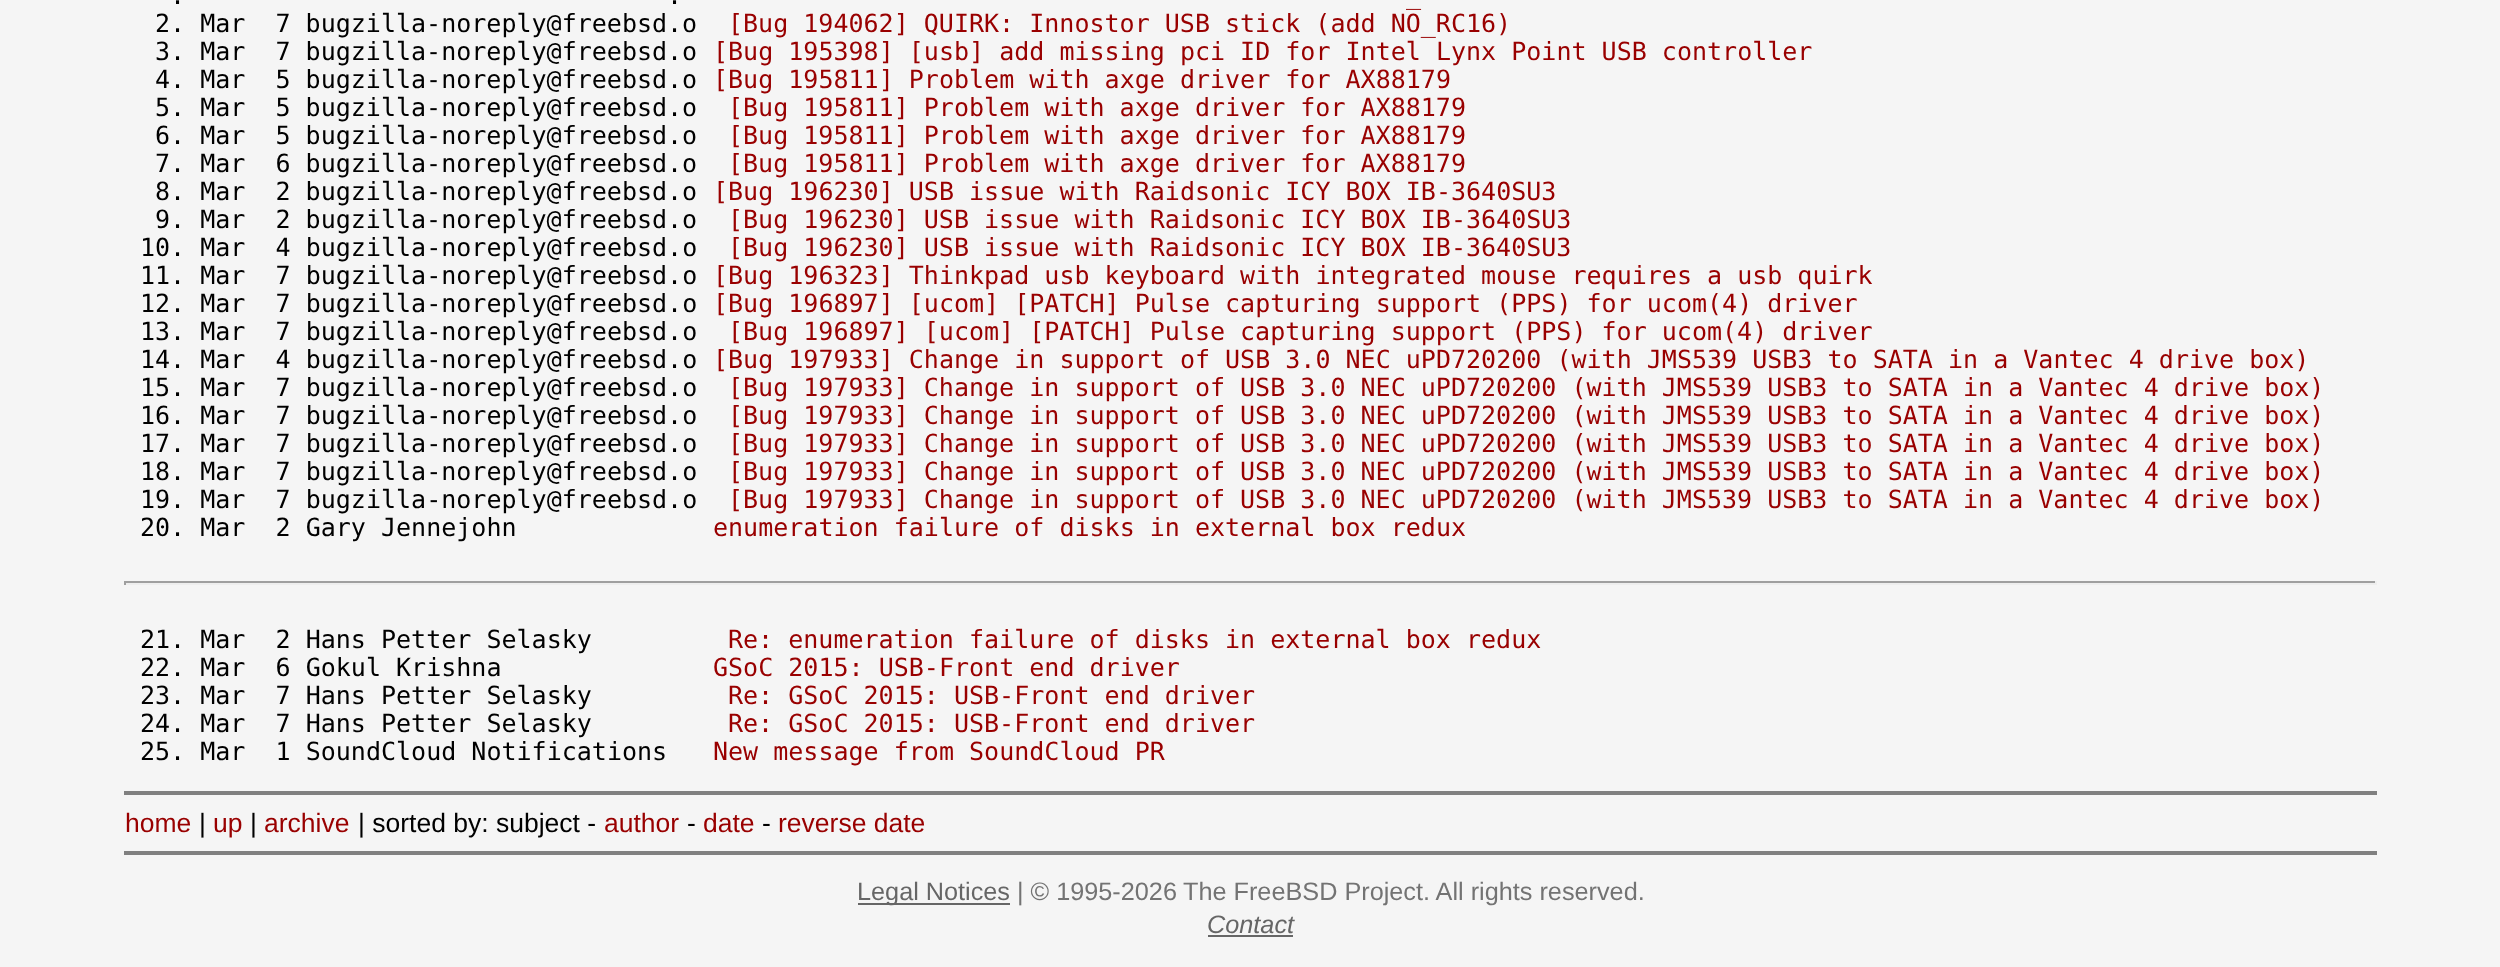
<svg xmlns="http://www.w3.org/2000/svg" width="2500" height="967">
<rect width="100%" height="100%" fill="#f5f5f5"/>
<text x="170" y="4" style="font-family:DejaVu Sans Mono;font-size:25.03px;fill:#000">.</text>
<text x="667" y="4" style="font-family:DejaVu Sans Mono;font-size:25.03px;fill:#000">.</text>
<text x="1406" y="4" style="font-family:DejaVu Sans Mono;font-size:25.03px;fill:#900">_</text>
<text x="155" y="32" style="font-family:DejaVu Sans Mono;font-size:25.03px;fill:#000" xml:space="preserve">2. Mar  7 bugzilla-noreply@freebsd.o</text>
<text x="728" y="32" style="font-family:DejaVu Sans Mono;font-size:25.03px;fill:#900">[Bug 194062] QUIRK: Innostor USB stick (add NO_RC16)</text>
<text x="155" y="60" style="font-family:DejaVu Sans Mono;font-size:25.03px;fill:#000" xml:space="preserve">3. Mar  7 bugzilla-noreply@freebsd.o</text>
<text x="713" y="60" style="font-family:DejaVu Sans Mono;font-size:25.03px;fill:#900">[Bug 195398] [usb] add missing pci ID for Intel Lynx Point USB controller</text>
<text x="155" y="88" style="font-family:DejaVu Sans Mono;font-size:25.03px;fill:#000" xml:space="preserve">4. Mar  5 bugzilla-noreply@freebsd.o</text>
<text x="713" y="88" style="font-family:DejaVu Sans Mono;font-size:25.03px;fill:#900">[Bug 195811] Problem with axge driver for AX88179</text>
<text x="155" y="116" style="font-family:DejaVu Sans Mono;font-size:25.03px;fill:#000" xml:space="preserve">5. Mar  5 bugzilla-noreply@freebsd.o</text>
<text x="728" y="116" style="font-family:DejaVu Sans Mono;font-size:25.03px;fill:#900">[Bug 195811] Problem with axge driver for AX88179</text>
<text x="155" y="144" style="font-family:DejaVu Sans Mono;font-size:25.03px;fill:#000" xml:space="preserve">6. Mar  5 bugzilla-noreply@freebsd.o</text>
<text x="728" y="144" style="font-family:DejaVu Sans Mono;font-size:25.03px;fill:#900">[Bug 195811] Problem with axge driver for AX88179</text>
<text x="155" y="172" style="font-family:DejaVu Sans Mono;font-size:25.03px;fill:#000" xml:space="preserve">7. Mar  6 bugzilla-noreply@freebsd.o</text>
<text x="728" y="172" style="font-family:DejaVu Sans Mono;font-size:25.03px;fill:#900">[Bug 195811] Problem with axge driver for AX88179</text>
<text x="155" y="200" style="font-family:DejaVu Sans Mono;font-size:25.03px;fill:#000" xml:space="preserve">8. Mar  2 bugzilla-noreply@freebsd.o</text>
<text x="713" y="200" style="font-family:DejaVu Sans Mono;font-size:25.03px;fill:#900">[Bug 196230] USB issue with Raidsonic ICY BOX IB-3640SU3</text>
<text x="155" y="228" style="font-family:DejaVu Sans Mono;font-size:25.03px;fill:#000" xml:space="preserve">9. Mar  2 bugzilla-noreply@freebsd.o</text>
<text x="728" y="228" style="font-family:DejaVu Sans Mono;font-size:25.03px;fill:#900">[Bug 196230] USB issue with Raidsonic ICY BOX IB-3640SU3</text>
<text x="140" y="256" style="font-family:DejaVu Sans Mono;font-size:25.03px;fill:#000" xml:space="preserve">10. Mar  4 bugzilla-noreply@freebsd.o</text>
<text x="728" y="256" style="font-family:DejaVu Sans Mono;font-size:25.03px;fill:#900">[Bug 196230] USB issue with Raidsonic ICY BOX IB-3640SU3</text>
<text x="140" y="284" style="font-family:DejaVu Sans Mono;font-size:25.03px;fill:#000" xml:space="preserve">11. Mar  7 bugzilla-noreply@freebsd.o</text>
<text x="713" y="284" style="font-family:DejaVu Sans Mono;font-size:25.03px;fill:#900">[Bug 196323] Thinkpad usb keyboard with integrated mouse requires a usb quirk</text>
<text x="140" y="312" style="font-family:DejaVu Sans Mono;font-size:25.03px;fill:#000" xml:space="preserve">12. Mar  7 bugzilla-noreply@freebsd.o</text>
<text x="713" y="312" style="font-family:DejaVu Sans Mono;font-size:25.03px;fill:#900">[Bug 196897] [ucom] [PATCH] Pulse capturing support (PPS) for ucom(4) driver</text>
<text x="140" y="340" style="font-family:DejaVu Sans Mono;font-size:25.03px;fill:#000" xml:space="preserve">13. Mar  7 bugzilla-noreply@freebsd.o</text>
<text x="728" y="340" style="font-family:DejaVu Sans Mono;font-size:25.03px;fill:#900">[Bug 196897] [ucom] [PATCH] Pulse capturing support (PPS) for ucom(4) driver</text>
<text x="140" y="368" style="font-family:DejaVu Sans Mono;font-size:25.03px;fill:#000" xml:space="preserve">14. Mar  4 bugzilla-noreply@freebsd.o</text>
<text x="713" y="368" style="font-family:DejaVu Sans Mono;font-size:25.03px;fill:#900">[Bug 197933] Change in support of USB 3.0 NEC uPD720200 (with JMS539 USB3 to SATA in a Vantec 4 drive box)</text>
<text x="140" y="396" style="font-family:DejaVu Sans Mono;font-size:25.03px;fill:#000" xml:space="preserve">15. Mar  7 bugzilla-noreply@freebsd.o</text>
<text x="728" y="396" style="font-family:DejaVu Sans Mono;font-size:25.03px;fill:#900">[Bug 197933] Change in support of USB 3.0 NEC uPD720200 (with JMS539 USB3 to SATA in a Vantec 4 drive box)</text>
<text x="140" y="424" style="font-family:DejaVu Sans Mono;font-size:25.03px;fill:#000" xml:space="preserve">16. Mar  7 bugzilla-noreply@freebsd.o</text>
<text x="728" y="424" style="font-family:DejaVu Sans Mono;font-size:25.03px;fill:#900">[Bug 197933] Change in support of USB 3.0 NEC uPD720200 (with JMS539 USB3 to SATA in a Vantec 4 drive box)</text>
<text x="140" y="452" style="font-family:DejaVu Sans Mono;font-size:25.03px;fill:#000" xml:space="preserve">17. Mar  7 bugzilla-noreply@freebsd.o</text>
<text x="728" y="452" style="font-family:DejaVu Sans Mono;font-size:25.03px;fill:#900">[Bug 197933] Change in support of USB 3.0 NEC uPD720200 (with JMS539 USB3 to SATA in a Vantec 4 drive box)</text>
<text x="140" y="480" style="font-family:DejaVu Sans Mono;font-size:25.03px;fill:#000" xml:space="preserve">18. Mar  7 bugzilla-noreply@freebsd.o</text>
<text x="728" y="480" style="font-family:DejaVu Sans Mono;font-size:25.03px;fill:#900">[Bug 197933] Change in support of USB 3.0 NEC uPD720200 (with JMS539 USB3 to SATA in a Vantec 4 drive box)</text>
<text x="140" y="508" style="font-family:DejaVu Sans Mono;font-size:25.03px;fill:#000" xml:space="preserve">19. Mar  7 bugzilla-noreply@freebsd.o</text>
<text x="728" y="508" style="font-family:DejaVu Sans Mono;font-size:25.03px;fill:#900">[Bug 197933] Change in support of USB 3.0 NEC uPD720200 (with JMS539 USB3 to SATA in a Vantec 4 drive box)</text>
<text x="140" y="536" style="font-family:DejaVu Sans Mono;font-size:25.03px;fill:#000" xml:space="preserve">20. Mar  2 Gary Jennejohn</text>
<text x="713" y="536" style="font-family:DejaVu Sans Mono;font-size:25.03px;fill:#900">enumeration failure of disks in external box redux</text>
<rect x="124" y="581" width="2253" height="2" fill="#9f9f9f"/>
<rect x="2375" y="581" width="2" height="4" fill="#eee"/>
<rect x="124" y="583" width="2253" height="2" fill="#eee"/>
<rect x="124" y="581" width="2" height="4" fill="#9f9f9f"/>
<text x="140" y="648" style="font-family:DejaVu Sans Mono;font-size:25.03px;fill:#000" xml:space="preserve">21. Mar  2 Hans Petter Selasky</text>
<text x="728" y="648" style="font-family:DejaVu Sans Mono;font-size:25.03px;fill:#900">Re: enumeration failure of disks in external box redux</text>
<text x="140" y="676" style="font-family:DejaVu Sans Mono;font-size:25.03px;fill:#000" xml:space="preserve">22. Mar  6 Gokul Krishna</text>
<text x="713" y="676" style="font-family:DejaVu Sans Mono;font-size:25.03px;fill:#900">GSoC 2015: USB-Front end driver</text>
<text x="140" y="704" style="font-family:DejaVu Sans Mono;font-size:25.03px;fill:#000" xml:space="preserve">23. Mar  7 Hans Petter Selasky</text>
<text x="728" y="704" style="font-family:DejaVu Sans Mono;font-size:25.03px;fill:#900">Re: GSoC 2015: USB-Front end driver</text>
<text x="140" y="732" style="font-family:DejaVu Sans Mono;font-size:25.03px;fill:#000" xml:space="preserve">24. Mar  7 Hans Petter Selasky</text>
<text x="728" y="732" style="font-family:DejaVu Sans Mono;font-size:25.03px;fill:#900">Re: GSoC 2015: USB-Front end driver</text>
<text x="140" y="760" style="font-family:DejaVu Sans Mono;font-size:25.03px;fill:#000" xml:space="preserve">25. Mar  1 SoundCloud Notifications</text>
<text x="713" y="760" style="font-family:DejaVu Sans Mono;font-size:25.03px;fill:#900">New message from SoundCloud PR</text>
<rect x="124" y="791" width="2253" height="4" fill="#808080"/>
<text x="125" y="832" style="font-family:Liberation Sans;font-size:26.5px;fill:#900">home</text>
<text x="199" y="832" style="font-family:Liberation Sans;font-size:26.5px;fill:#000">|</text>
<text x="213" y="832" style="font-family:Liberation Sans;font-size:26.5px;fill:#900">up</text>
<text x="250" y="832" style="font-family:Liberation Sans;font-size:26.5px;fill:#000">|</text>
<text x="264" y="832" style="font-family:Liberation Sans;font-size:26.5px;fill:#900">archive</text>
<text x="358" y="832" style="font-family:Liberation Sans;font-size:26.5px;fill:#000">| sorted by: subject -</text>
<text x="604" y="832" style="font-family:Liberation Sans;font-size:26.5px;fill:#900">author</text>
<text x="687" y="832" style="font-family:Liberation Sans;font-size:26.5px;fill:#000">-</text>
<text x="703" y="832" style="font-family:Liberation Sans;font-size:26.5px;fill:#900">date</text>
<text x="762" y="832" style="font-family:Liberation Sans;font-size:26.5px;fill:#000">-</text>
<text x="778" y="832" style="font-family:Liberation Sans;font-size:26.5px;fill:#900">reverse date</text>
<rect x="124" y="851" width="2253" height="4" fill="#808080"/>
<rect x="858" y="903" width="152" height="2" fill="#666"/>
<text x="857" y="900" style="font-family:Liberation Sans;font-size:25.25px;fill:#666">Legal Notices</text>
<text x="1017" y="900" style="font-family:Liberation Sans;font-size:25.25px;fill:#737373">| © 1995-2026</text>
<text x="1183" y="900" style="font-family:Liberation Sans;font-size:25.25px;fill:#737373">The FreeBSD Project. All rights reserved.</text>
<text x="1207" y="933" style="font-family:Liberation Sans;font-size:25.25px;font-style:italic;fill:#666">Contact</text>
<rect x="1208" y="935" width="85" height="2" fill="#666"/>
</svg>
